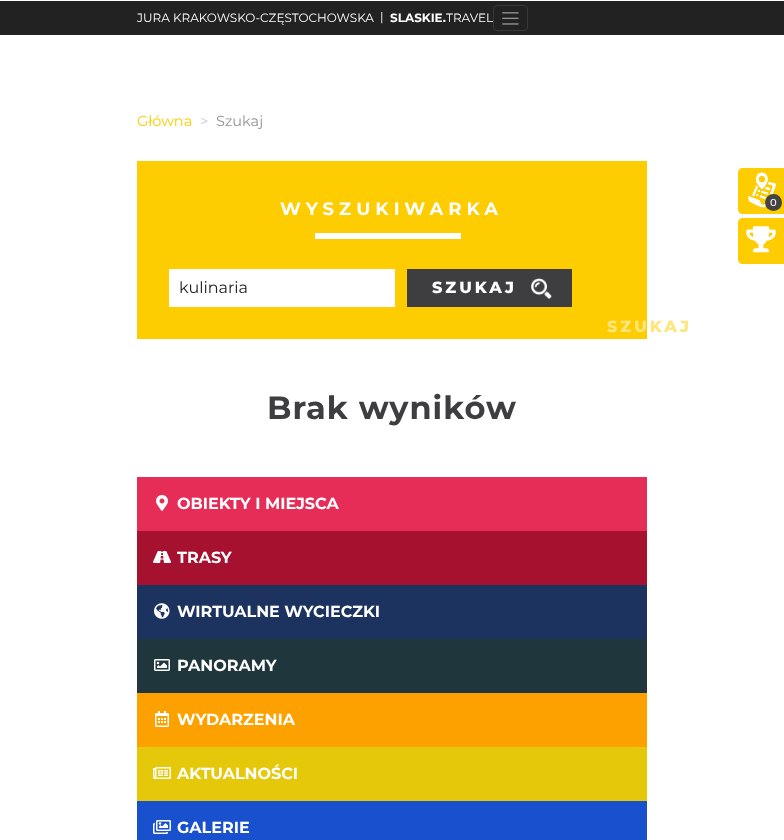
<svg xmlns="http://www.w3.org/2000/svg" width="784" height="840">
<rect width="100%" height="100%" fill="#fff"/>
<rect y="1" width="784" height="34" fill="#222"/>
<text x="137" y="22" style="font-family:Montserrat;font-size:12px;fill:#fff">JURA KRAKOWSKO-CZĘSTOCHOWSKA</text>
<text x="380" y="21" style="font-family:Montserrat;font-size:12px;fill:#fff">|</text>
<text x="390" y="22" style="font-family:Montserrat;font-size:12px;font-weight:bold;fill:#fff">SLASKIE.</text>
<text x="446" y="22" style="font-family:Montserrat;font-size:12px;fill:#fff">TRAVEL</text>
<rect x="493.5" y="5.5" width="34" height="25" rx="3.5" fill="none" stroke="#383838"/>
<image x="502" y="12" width="17" height="13" href="media/1.png"/>
<text x="137" y="126" style="font-family:Montserrat;font-size:14.5px;fill:#fdcc01">Główna</text>
<text x="200" y="126" style="font-family:Montserrat;font-size:14.5px;fill:#ccc">&gt;</text>
<text x="216" y="126" style="font-family:Montserrat;font-size:14.5px;fill:#929292">Szukaj</text>
<rect x="137" y="161" width="510" height="178" fill="#fdcc01"/>
<text x="280" y="215" style="font-family:Montserrat;font-size:18px;font-weight:bold;letter-spacing:5px;fill:#fff">WYSZUKIWARKA</text>
<rect x="315" y="233" width="146" height="6" fill="#fff"/>
<rect x="169" y="269" width="226" height="38" fill="#fff"/>
<text x="179" y="293" style="font-family:Montserrat;font-size:16px;fill:#222">kulinaria</text>
<rect x="407" y="269" width="165" height="38" fill="#3e3d40"/>
<text x="432" y="293" style="font-family:Montserrat;font-size:16px;font-weight:800;letter-spacing:3px;fill:#fff">SZUKAJ</text>
<image x="531" y="278" width="21" height="21" href="media/2.png"/>
<text x="607" y="332" style="font-family:Montserrat;font-size:16px;font-weight:800;letter-spacing:3px;fill:#fee57c">SZUKAJ</text>
<text x="267" y="419" style="font-family:Montserrat;font-size:32px;font-weight:bold;letter-spacing:1px;fill:#3e3d40">Brak wyników</text>
<rect x="137" y="477" width="510" height="54" fill="#e62d57"/>
<image x="156" y="495" width="12" height="16" href="media/3.png"/>
<text x="177" y="509" style="font-family:Montserrat;font-size:16px;font-weight:bold;fill:#fff">OBIEKTY I MIEJSCA</text>
<rect x="137" y="531" width="510" height="54" fill="#a6112f"/>
<image x="153" y="551" width="18" height="12" href="media/4.png"/>
<text x="177" y="563" style="font-family:Montserrat;font-size:16px;font-weight:bold;fill:#fff">TRASY</text>
<rect x="137" y="585" width="510" height="54" fill="#1d335f"/>
<image x="154" y="603" width="16" height="16" href="media/5.png"/>
<text x="177" y="617" style="font-family:Montserrat;font-size:16px;font-weight:bold;fill:#fff">WIRTUALNE WYCIECZKI</text>
<rect x="137" y="639" width="510" height="54" fill="#1f373c"/>
<image x="154" y="659" width="16" height="12" href="media/6.png"/>
<text x="177" y="671" style="font-family:Montserrat;font-size:16px;font-weight:bold;fill:#fff">PANORAMY</text>
<rect x="137" y="693" width="510" height="54" fill="#fda100"/>
<image x="155" y="711" width="14" height="16" href="media/7.png"/>
<text x="177" y="725" style="font-family:Montserrat;font-size:16px;font-weight:bold;fill:#fff">WYDARZENIA</text>
<rect x="137" y="747" width="510" height="54" fill="#e5c80a"/>
<image x="153" y="767" width="18" height="12" href="media/8.png"/>
<text x="177" y="779" style="font-family:Montserrat;font-size:16px;font-weight:bold;fill:#fff">AKTUALNOŚCI</text>
<rect x="137" y="801" width="510" height="39" fill="#1950ce"/>
<image x="153" y="820" width="18" height="14" href="media/9.png"/>
<text x="177" y="833" style="font-family:Montserrat;font-size:16px;font-weight:bold;fill:#fff">GALERIE</text>
<path d="M743 168h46v46h-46c-3 0-5-2-5-5v-36c0-3 2-5 5-5z" fill="#fdcc01"/>
<image x="748" y="172" width="28" height="36" href="media/10.png"/>
<circle cx="773.5" cy="202.5" r="8.5" fill="#444"/>
<text x="770" y="206" style="font-family:Montserrat;font-size:10px;font-weight:500;fill:#fff">0</text>
<path d="M743 218h41v46h-41c-3 0-5-2-5-5v-36c0-3 2-5 5-5z" fill="#fdcc01"/>
<image x="746" y="226" width="30" height="27" href="media/11.png"/>
</svg>
